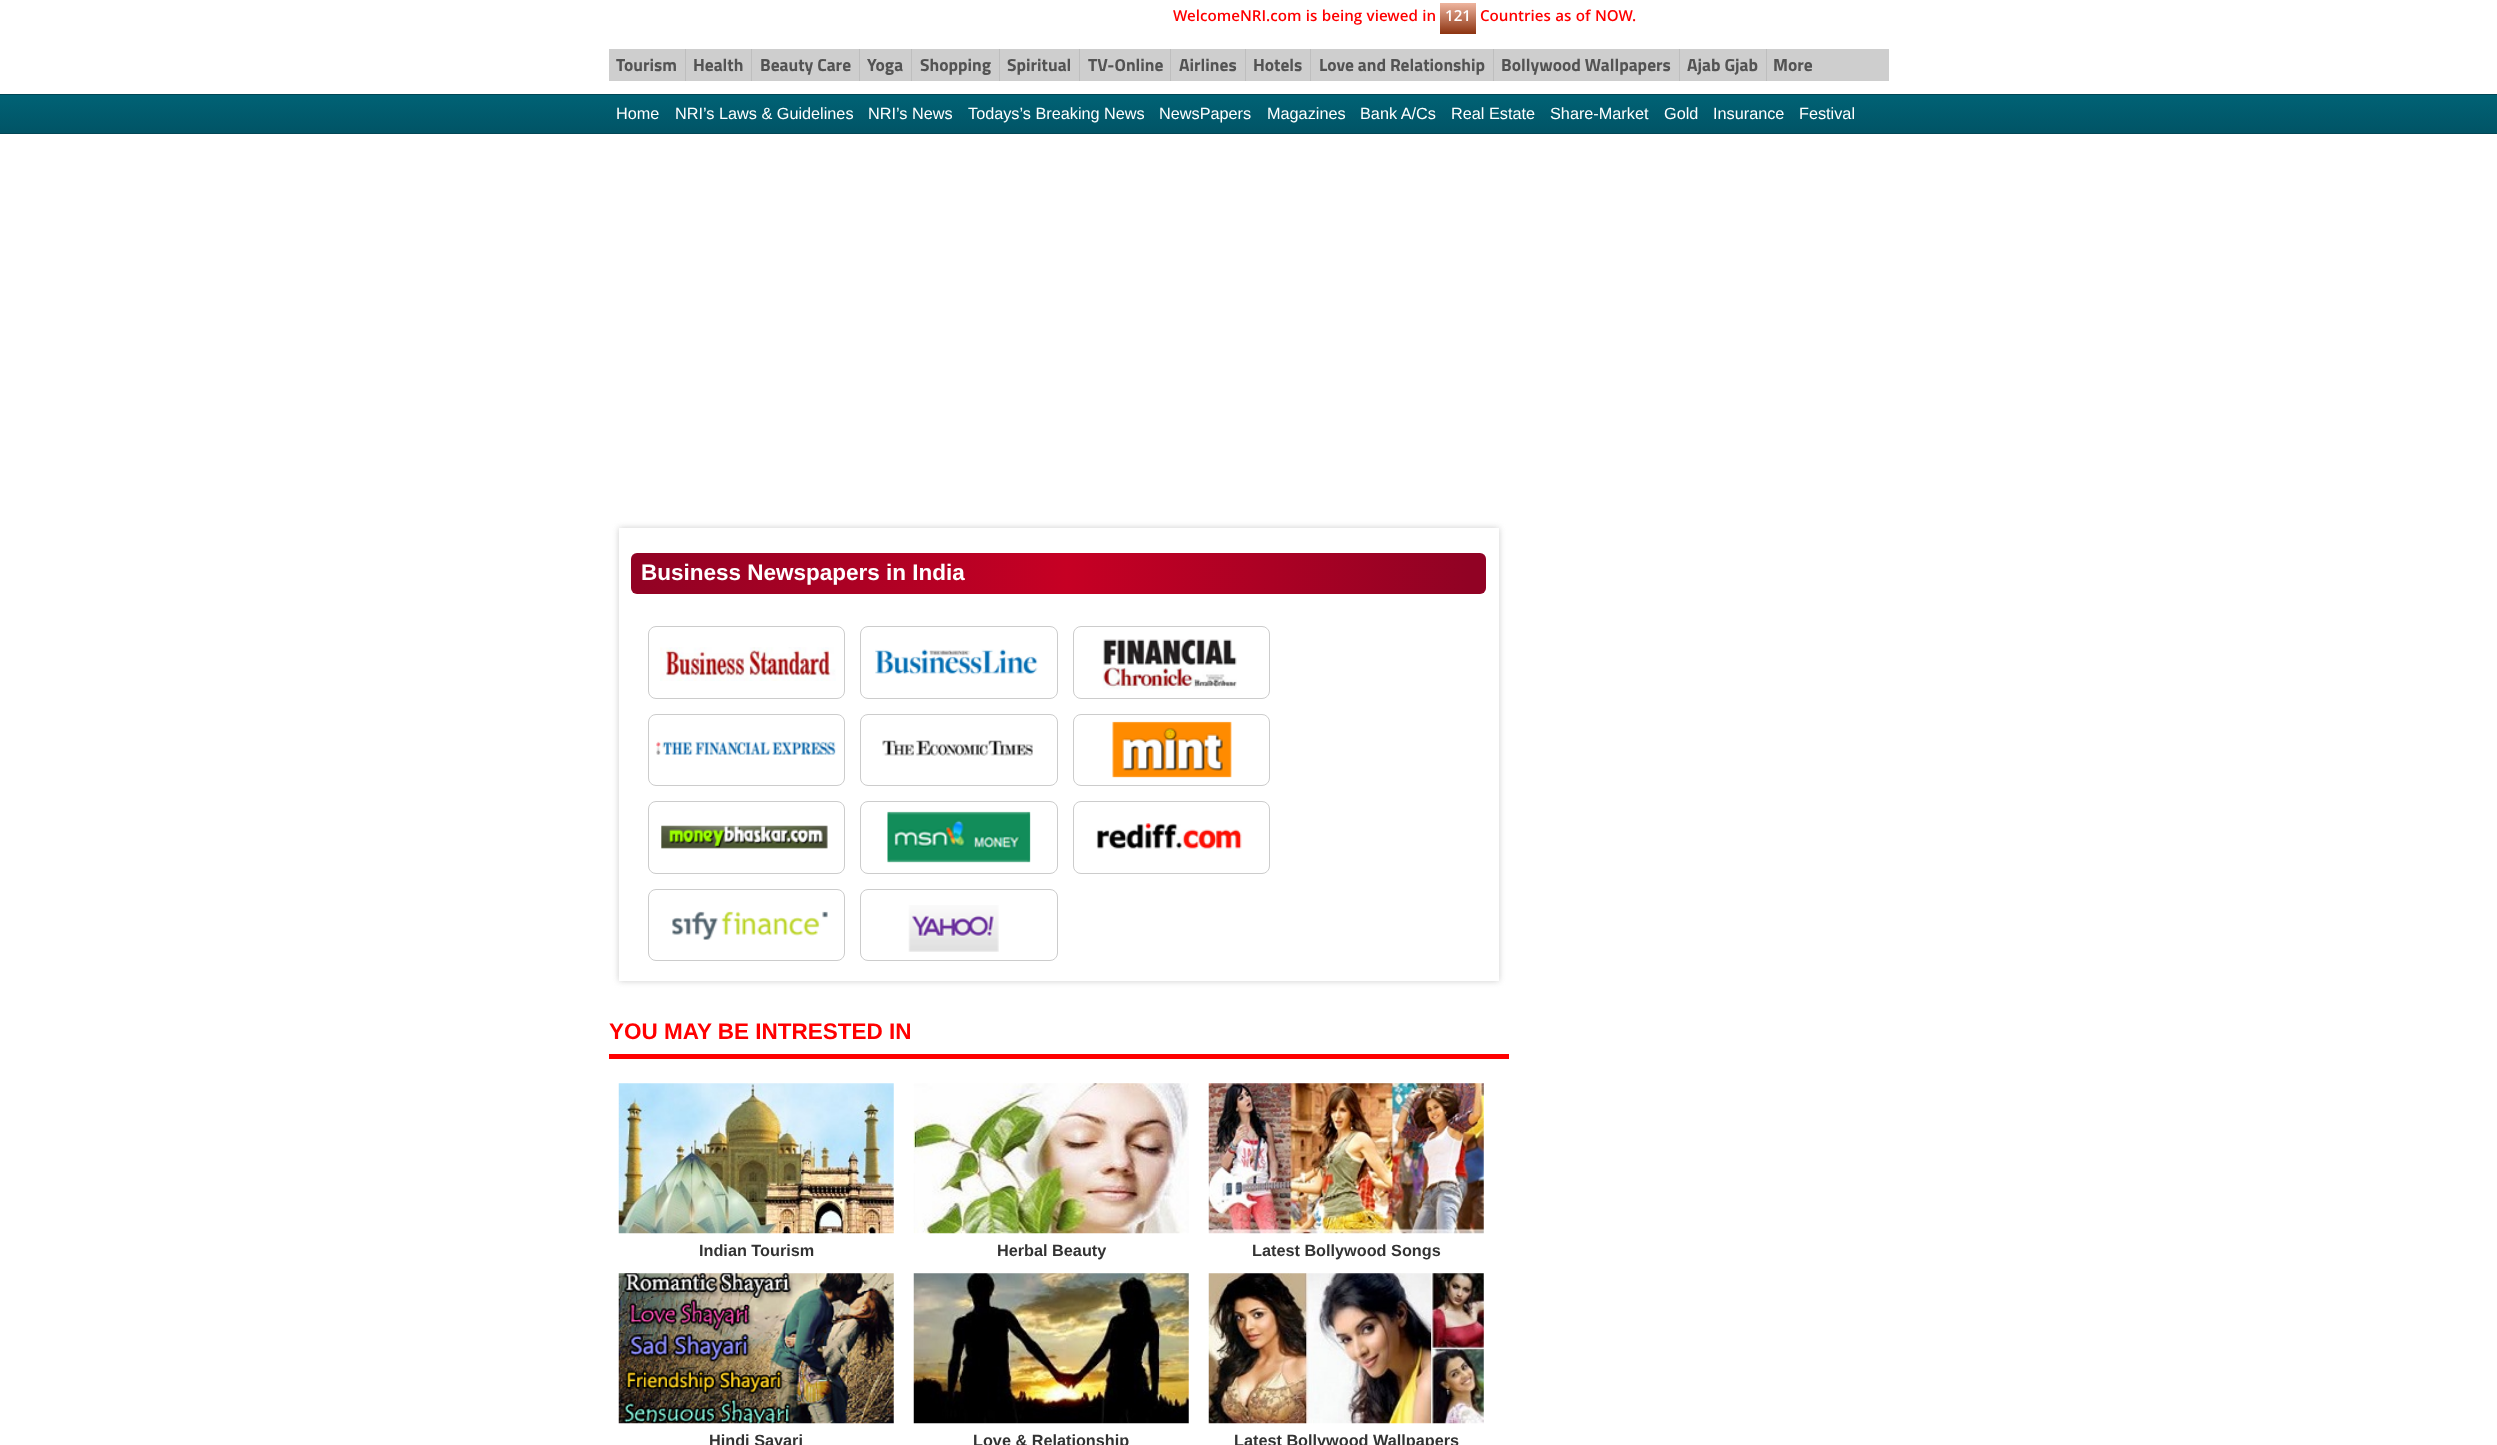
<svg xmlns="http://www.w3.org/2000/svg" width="2497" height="1445">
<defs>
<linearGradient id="g1" gradientUnits="userSpaceOnUse" x1="1458" y1="2.5" x2="1458" y2="34"><stop offset="0" stop-color="#f0b7a1"/><stop offset="1" stop-color="#8c3310"/><stop offset="1" stop-color="#752201"/><stop offset="1" stop-color="#bf6e4e"/><stop offset="1" stop-color="#752201"/><stop offset="1" stop-color="#8c3310"/></linearGradient>
<linearGradient id="g2" gradientUnits="userSpaceOnUse" x1="1249" y1="95" x2="1249" y2="133"><stop offset="0" stop-color="#006275"/><stop offset="1" stop-color="#015466"/></linearGradient>
<clipPath id="clip1"><path d="M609 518h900v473h-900zm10 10h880v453h-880z" clip-rule="evenodd"/></clipPath>
<linearGradient id="g3" gradientUnits="userSpaceOnUse" x1="631" y1="573" x2="1486" y2="573"><stop offset="0" stop-color="#a90329"/><stop offset="0" stop-color="#910224"/><stop offset="0.51" stop-color="#c60024"/><stop offset="0.98" stop-color="#910224"/></linearGradient>
</defs>
<rect width="100%" height="100%" fill="#fff"/>
<text x="1173" y="21" style="font-family:Khula;font-size:16.25px;font-weight:600;fill:#f00">WelcomeNRI.com is being viewed in</text>
<rect x="1440" y="3" width="36" height="31" fill="url(#g1)"/>
<text x="1445" y="21" style="font-family:Khula;font-size:16.25px;font-weight:600;fill:#fff">121</text>
<text x="1480" y="21" style="font-family:Khula;font-size:16.25px;font-weight:600;fill:#f00">Countries as of NOW.</text>
<rect x="609" y="49" width="1280" height="32" fill="#cecece"/>
<rect x="685" y="49" width="1" height="32" fill="#bebebe"/>
<text x="616" y="71" style="font-family:Titillium Web;font-size:17.5px;font-weight:bold;fill:#535353">Tourism</text>
<rect x="751" y="49" width="1" height="32" fill="#bebebe"/>
<text x="693" y="71" style="font-family:Titillium Web;font-size:17.5px;font-weight:bold;fill:#535353">Health</text>
<rect x="859" y="49" width="1" height="32" fill="#bebebe"/>
<text x="760" y="71" style="font-family:Titillium Web;font-size:17.5px;font-weight:bold;fill:#535353">Beauty Care</text>
<rect x="911" y="49" width="1" height="32" fill="#bebebe"/>
<text x="867" y="71" style="font-family:Titillium Web;font-size:17.5px;font-weight:bold;fill:#535353">Yoga</text>
<rect x="999" y="49" width="1" height="32" fill="#bebebe"/>
<text x="920" y="71" style="font-family:Titillium Web;font-size:17.5px;font-weight:bold;fill:#535353">Shopping</text>
<rect x="1079" y="49" width="1" height="32" fill="#bebebe"/>
<text x="1007" y="71" style="font-family:Titillium Web;font-size:17.5px;font-weight:bold;fill:#535353">Spiritual</text>
<rect x="1170" y="49" width="1" height="32" fill="#bebebe"/>
<text x="1088" y="71" style="font-family:Titillium Web;font-size:17.5px;font-weight:bold;fill:#535353">TV-Online</text>
<rect x="1245" y="49" width="1" height="32" fill="#bebebe"/>
<text x="1179" y="71" style="font-family:Titillium Web;font-size:17.5px;font-weight:bold;fill:#535353">Airlines</text>
<rect x="1310" y="49" width="1" height="32" fill="#bebebe"/>
<text x="1253" y="71" style="font-family:Titillium Web;font-size:17.5px;font-weight:bold;fill:#535353">Hotels</text>
<rect x="1493" y="49" width="1" height="32" fill="#bebebe"/>
<text x="1319" y="71" style="font-family:Titillium Web;font-size:17.5px;font-weight:bold;fill:#535353">Love and Relationship</text>
<rect x="1679" y="49" width="1" height="32" fill="#bebebe"/>
<text x="1501" y="71" style="font-family:Titillium Web;font-size:17.5px;font-weight:bold;fill:#535353">Bollywood Wallpapers</text>
<rect x="1766" y="49" width="1" height="32" fill="#bebebe"/>
<text x="1687" y="71" style="font-family:Titillium Web;font-size:17.5px;font-weight:bold;fill:#535353">Ajab Gjab</text>
<text x="1773" y="71" style="font-family:Titillium Web;font-size:17.5px;font-weight:bold;fill:#535353">More</text>
<rect y="95" width="2497" height="38" fill="url(#g2)"/>
<rect y="94" width="2497" height="1" fill="#024655"/>
<rect y="133" width="2497" height="1" fill="#024655"/>
<text x="616" y="119" style="font-family:Liberation Sans;font-size:16.25px;fill:#fff">Home</text>
<text x="675" y="119" style="font-family:Liberation Sans;font-size:16.25px;fill:#fff">NRI’s Laws &amp; Guidelines</text>
<text x="868" y="119" style="font-family:Liberation Sans;font-size:16.25px;fill:#fff">NRI’s News</text>
<text x="968" y="119" style="font-family:Liberation Sans;font-size:16.25px;fill:#fff">Todays’s Breaking News</text>
<text x="1159" y="119" style="font-family:Liberation Sans;font-size:16.25px;fill:#fff">NewsPapers</text>
<text x="1267" y="119" style="font-family:Liberation Sans;font-size:16.25px;fill:#fff">Magazines</text>
<text x="1360" y="119" style="font-family:Liberation Sans;font-size:16.25px;fill:#fff">Bank A/Cs</text>
<text x="1451" y="119" style="font-family:Liberation Sans;font-size:16.25px;fill:#fff">Real Estate</text>
<text x="1550" y="119" style="font-family:Liberation Sans;font-size:16.25px;fill:#fff">Share-Market</text>
<text x="1664" y="119" style="font-family:Liberation Sans;font-size:16.25px;fill:#fff">Gold</text>
<text x="1713" y="119" style="font-family:Liberation Sans;font-size:16.25px;fill:#fff">Insurance</text>
<text x="1799" y="119" style="font-family:Liberation Sans;font-size:16.25px;fill:#fff">Festival</text>
<g clip-path="url(#clip1)">
<rect x="619" y="528" width="880" height="453" fill="#ccc" filter="blur(3px)"/>
</g>
<rect x="631" y="553" width="855" height="41" rx="6" fill="url(#g3)"/>
<text x="641" y="580" style="font-family:Liberation Sans;font-size:22.5px;font-weight:bold;fill:#fff">Business Newspapers in India</text>
<rect x="648.5" y="626.5" width="196" height="72" rx="7.5" fill="none" stroke="#ccc"/>
<image x="660" y="647" width="176" height="34" href="media/1.png"/>
<rect x="860.5" y="626.5" width="197" height="72" rx="7.5" fill="none" stroke="#ccc"/>
<image x="875" y="649" width="163" height="26" href="media/2.png"/>
<rect x="1073.5" y="626.5" width="196" height="72" rx="7.5" fill="none" stroke="#ccc"/>
<image x="1102" y="639" width="135" height="51" href="media/3.png"/>
<rect x="648.5" y="714.5" width="196" height="71" rx="7.5" fill="none" stroke="#ccc"/>
<image x="656" y="741" width="180" height="14" href="media/4.png"/>
<rect x="860.5" y="714.5" width="197" height="71" rx="7.5" fill="none" stroke="#ccc"/>
<image x="882" y="740" width="151" height="16" href="media/5.png"/>
<rect x="1073.5" y="714.5" width="196" height="71" rx="7.5" fill="none" stroke="#ccc"/>
<image x="1112" y="721" width="120" height="57" href="media/6.png"/>
<rect x="648.5" y="801.5" width="196" height="72" rx="7.5" fill="none" stroke="#ccc"/>
<image x="661" y="825" width="167" height="24" href="media/7.png"/>
<rect x="860.5" y="801.5" width="197" height="72" rx="7.5" fill="none" stroke="#ccc"/>
<image x="887" y="811" width="144" height="52" href="media/8.png"/>
<rect x="1073.5" y="801.5" width="196" height="72" rx="7.5" fill="none" stroke="#ccc"/>
<image x="1096" y="823" width="146" height="26" href="media/9.png"/>
<rect x="648.5" y="889.5" width="196" height="71" rx="7.5" fill="none" stroke="#ccc"/>
<image x="672" y="911" width="156" height="29" href="media/10.png"/>
<rect x="860.5" y="889.5" width="197" height="71" rx="7.5" fill="none" stroke="#ccc"/>
<image x="908" y="905" width="91" height="47" href="media/11.png"/>
<rect x="609" y="1054" width="900" height="5" fill="#f00"/>
<text x="609" y="1039" style="font-family:Liberation Sans;font-size:22.5px;font-weight:bold;fill:#f00">YOU MAY BE INTRESTED IN</text>
<image x="618" y="1083" width="276" height="151" href="media/12.png"/>
<text x="699" y="1256" style="font-family:Liberation Sans;font-size:16.25px;font-weight:bold;fill:#333">Indian Tourism</text>
<image x="913" y="1083" width="276" height="151" href="media/13.png"/>
<text x="997" y="1256" style="font-family:Liberation Sans;font-size:16.25px;font-weight:bold;fill:#333">Herbal Beauty</text>
<image x="1208" y="1083" width="276" height="151" href="media/14.png"/>
<text x="1252" y="1256" style="font-family:Liberation Sans;font-size:16.25px;font-weight:bold;fill:#333">Latest Bollywood Songs</text>
<image x="618" y="1273" width="276" height="151" href="media/15.png"/>
<text x="709" y="1446" style="font-family:Liberation Sans;font-size:16.25px;font-weight:bold;fill:#333">Hindi Sayari</text>
<image x="913" y="1273" width="276" height="151" href="media/16.png"/>
<text x="973" y="1446" style="font-family:Liberation Sans;font-size:16.25px;font-weight:bold;fill:#333">Love &amp; Relationship</text>
<image x="1208" y="1273" width="276" height="151" href="media/17.png"/>
<text x="1234" y="1446" style="font-family:Liberation Sans;font-size:16.25px;font-weight:bold;fill:#333">Latest Bollywood Wallpapers</text>
</svg>
